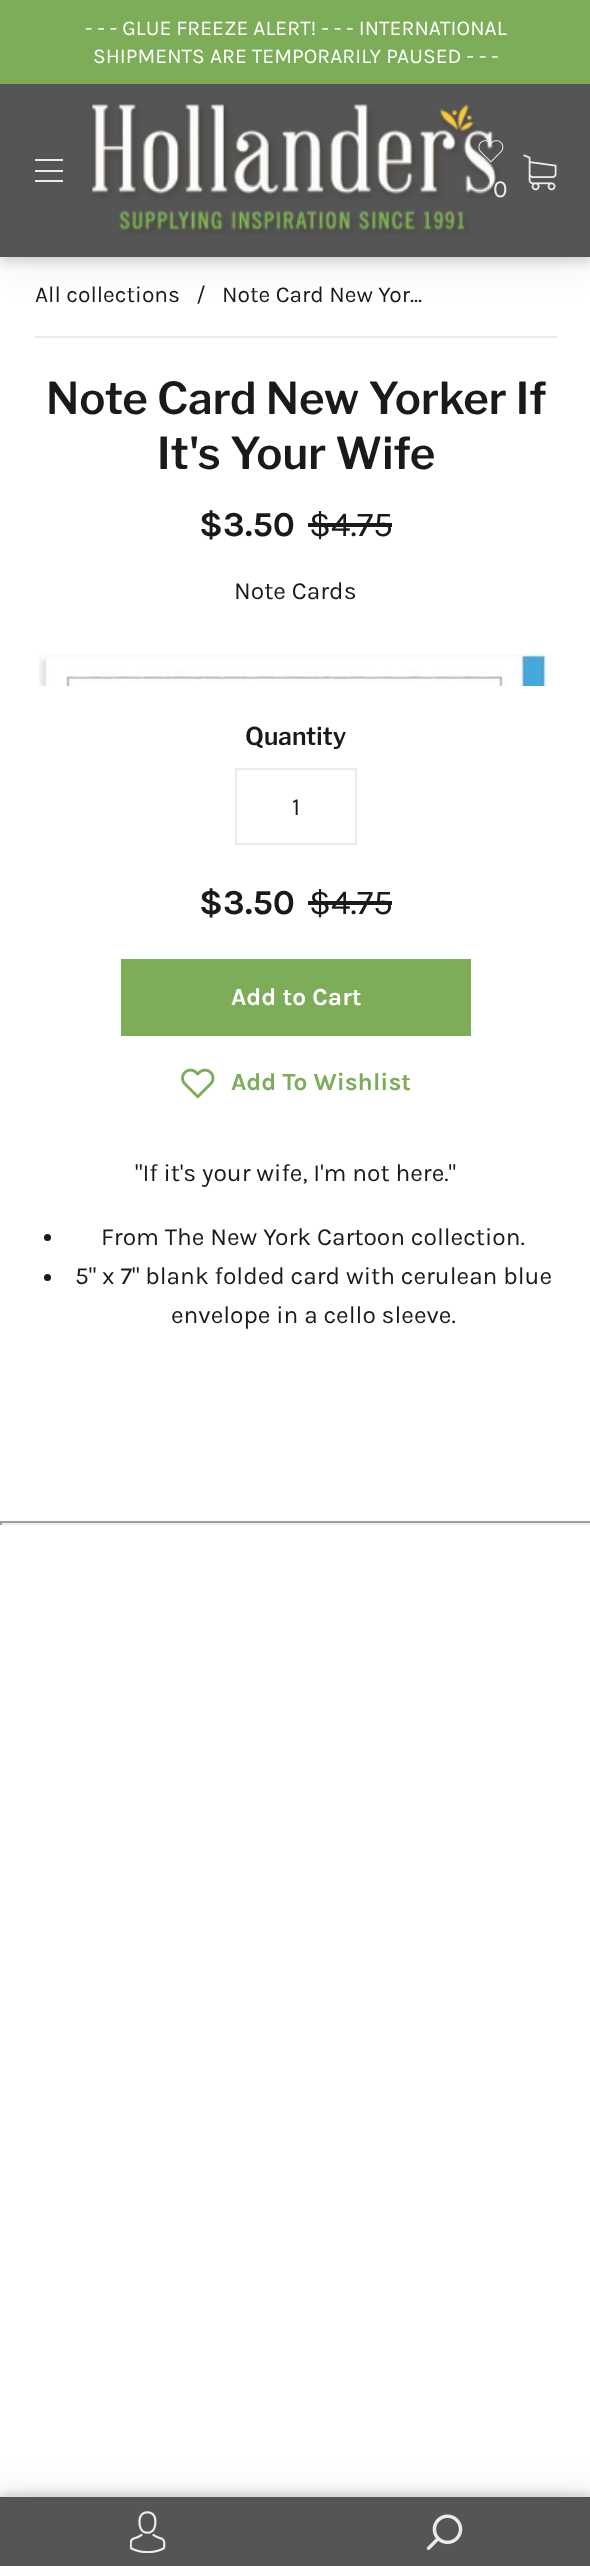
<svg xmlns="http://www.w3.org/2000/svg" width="590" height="2566">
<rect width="100%" height="100%" fill="#fff"/>
<rect y="11" width="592" height="257" fill="#0000000f" filter="blur(17.5px)"/>
<rect y="5" width="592" height="258" fill="#0000001f" filter="blur(4.5px)"/>
<rect y="84" width="590" height="173" fill="#555"/>
<rect width="590" height="84" fill="#7dad58"/>
<text x="85" y="35" style="font-family:Karla;font-size:21px;letter-spacing:0.05px;fill:#fff">- - - GLUE FREEZE ALERT! - - - INTERNATIONAL</text>
<text x="93" y="63" style="font-family:Karla;font-size:21px;letter-spacing:0.05px;fill:#fff">SHIPMENTS ARE TEMPORARILY PAUSED - - -</text>
<rect x="35" y="159" width="28" height="2" fill="#ebebeb"/>
<rect x="35" y="170" width="28" height="2" fill="#ebebeb"/>
<rect x="35" y="180" width="28" height="2" fill="#ebebeb"/>
<image x="92" y="104" width="409" height="131" href="media/1.png"/>
<image x="478" y="140" width="26" height="23" href="media/2.png"/>
<text x="493" y="197" style="font-family:Karla;font-size:24.5px;fill:#ebebeb">0</text>
<image x="523" y="154" width="34" height="37" href="media/3.png"/>
<rect x="35" y="336" width="522" height="2" fill="#ebebeb"/>
<text x="35" y="302" style="font-family:Karla;font-size:22.75px;fill:#1a1a1a">All collections</text>
<text x="196" y="302" style="font-family:Karla;font-size:22.75px;fill:#1a1a1a">/</text>
<text x="222" y="302" style="font-family:Karla;font-size:22.75px;fill:#1a1a1a">Note Card New Yor...</text>
<text x="46" y="414" style="font-family:Libre Franklin;font-size:43.75px;font-weight:600;fill:#1a1a1a">Note Card New Yorker If</text>
<text x="157" y="469" style="font-family:Libre Franklin;font-size:43.75px;font-weight:600;fill:#1a1a1a">It's Your Wife</text>
<text x="199" y="536" style="font-family:Karla;font-size:35px;font-weight:bold;fill:#1a1a1a">$3.50</text>
<text x="309" y="536" style="font-family:Karla;font-size:35px;fill:#1a1a1a">$4.75</text>
<rect x="308" y="523" width="84" height="4" fill="#1a1a1a"/>
<text x="234" y="599" style="font-family:Karla;font-size:24.5px;fill:#1a1a1a">Note Cards</text>
<image x="38" y="653" width="514" height="33" href="media/4.png"/>
<text x="245" y="745" style="font-family:Libre Franklin;font-size:24.5px;font-weight:600;fill:#1a1a1a">Quantity</text>
<rect x="236" y="769" width="120" height="75" fill="none" stroke="#ebebeb" stroke-width="2"/>
<text x="292" y="815" style="font-family:Karla;font-size:24.5px;fill:#1a1a1a">1</text>
<text x="199" y="914" style="font-family:Karla;font-size:35px;font-weight:bold;fill:#1a1a1a">$3.50</text>
<text x="309" y="914" style="font-family:Karla;font-size:35px;fill:#1a1a1a">$4.75</text>
<rect x="308" y="901" width="84" height="4" fill="#1a1a1a"/>
<rect x="121" y="959" width="350" height="77" fill="#7dad58"/>
<text x="231" y="1005" style="font-family:Karla;font-size:24.5px;font-weight:bold;fill:#fff">Add to Cart</text>
<image x="181" y="1068" width="34" height="31" href="media/5.png"/>
<text x="231" y="1090" style="font-family:Karla;font-size:24.5px;font-weight:bold;fill:#7dad58">Add To Wishlist</text>
<text x="135" y="1181" style="font-family:Karla;font-size:24.5px;fill:#1a1a1a">"If it's your wife, I'm not here."</text>
<circle cx="47.5" cy="1237.5" r="3.5" fill="#1a1a1a"/>
<text x="101" y="1245" style="font-family:Karla;font-size:24.5px;fill:#1a1a1a">From The New York Cartoon collection.</text>
<circle cx="47.5" cy="1277.5" r="3.5" fill="#1a1a1a"/>
<text x="75" y="1284" style="font-family:Karla;font-size:24.5px;fill:#1a1a1a">5" x 7" blank folded card with cerulean blue</text>
<text x="171" y="1323" style="font-family:Karla;font-size:24.5px;fill:#1a1a1a">envelope in a cello sleeve.</text>
<rect y="1521" width="590" height="2" fill="#9f9f9f"/>
<rect y="1523" width="590" height="2" fill="#eee"/>
<rect y="1521" width="2" height="4" fill="#9f9f9f"/>
<rect y="2487" width="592" height="70" fill="#0000000f" filter="blur(17.5px)"/>
<rect y="2492" width="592" height="70" fill="#0000001f" filter="blur(4.5px)"/>
<rect y="2497" width="590" height="69" fill="#555"/>
<image x="130" y="2511" width="36" height="42" href="media/6.png"/>
<image x="426" y="2514" width="37" height="36" href="media/7.png"/>
</svg>
